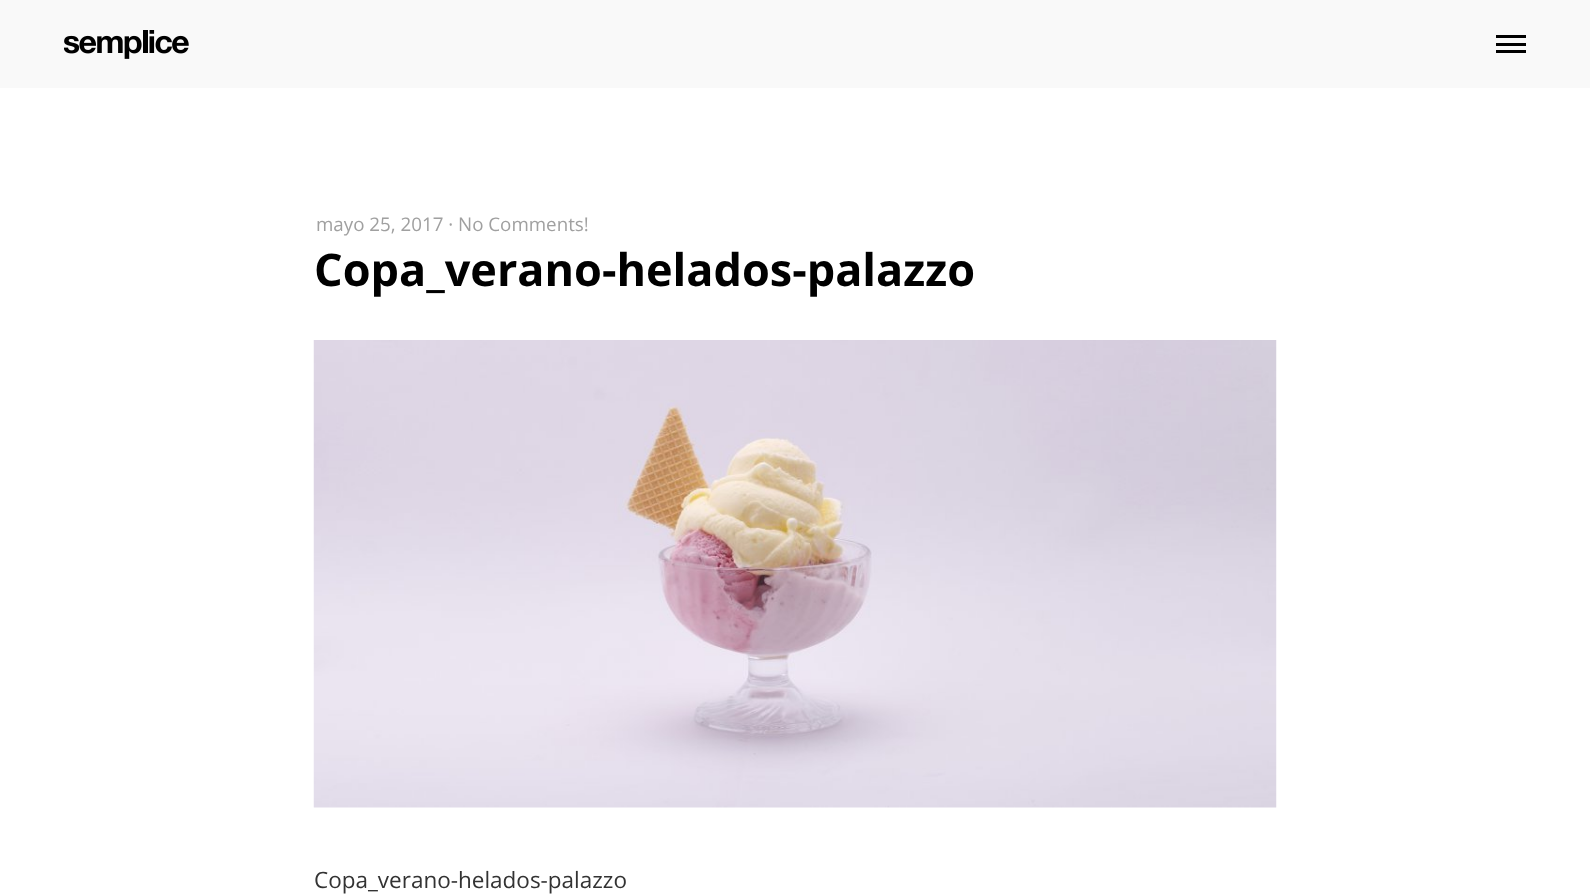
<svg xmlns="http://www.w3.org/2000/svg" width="1590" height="895">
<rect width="100%" height="100%" fill="#fff"/>
<rect width="1590" height="88" fill="#f9f9f9"/>
<image x="64" y="30" width="125" height="29" href="media/1.png"/>
<rect x="1496" y="43" width="30" height="3" fill="#000"/>
<rect x="1496" y="35" width="30" height="3" fill="#000"/>
<rect x="1496" y="50" width="30" height="3" fill="#000"/>
<text x="316" y="231" style="font-family:Open Sans;font-size:18.75px;fill:#a0a0a0">mayo 25, 2017 · No Comments!</text>
<text x="314" y="286" style="font-family:Open Sans;font-size:45px;font-weight:bold;fill:#000">Copa_verano-helados-palazzo</text>
<image x="313" y="340" width="964" height="468" href="media/2.png"/>
<text x="314" y="888" style="font-family:Open Sans;font-size:22.5px;fill:#333">Copa_verano-helados-palazzo</text>
</svg>
